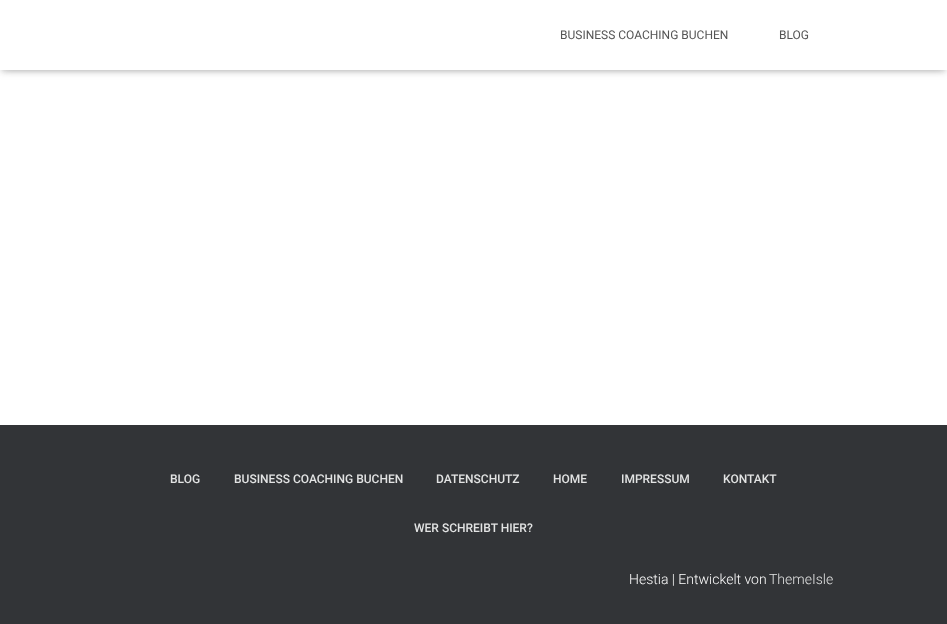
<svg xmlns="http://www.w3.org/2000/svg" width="947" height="624">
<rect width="100%" height="100%" fill="#323437"/>
<rect y="70" width="947" height="355" fill="#fff"/>
<rect x="2" y="6" width="943" height="66" fill="#0000001a" filter="blur(2.5px)"/>
<rect y="1" width="947" height="70" fill="#0000001f" filter="blur(5px)"/>
<rect x="6" y="7" width="935" height="58" fill="#0000006b" filter="blur(5px)"/>
<rect width="947" height="70" fill="#fff"/>
<text x="560" y="39" style="font-family:Roboto;font-size:12px;fill:#555">BUSINESS COACHING BUCHEN</text>
<text x="779" y="39" style="font-family:Roboto;font-size:12px;fill:#555">BLOG</text>
<text x="170" y="483" style="font-family:Roboto;font-size:12px;font-weight:500;fill:#e2e3e3">BLOG</text>
<text x="234" y="483" style="font-family:Roboto;font-size:12px;font-weight:500;fill:#e2e3e3">BUSINESS COACHING BUCHEN</text>
<text x="436" y="483" style="font-family:Roboto;font-size:12px;font-weight:500;fill:#e2e3e3">DATENSCHUTZ</text>
<text x="553" y="483" style="font-family:Roboto;font-size:12px;font-weight:500;fill:#e2e3e3">HOME</text>
<text x="621" y="483" style="font-family:Roboto;font-size:12px;font-weight:500;fill:#e2e3e3">IMPRESSUM</text>
<text x="723" y="483" style="font-family:Roboto;font-size:12px;font-weight:500;fill:#e2e3e3">KONTAKT</text>
<text x="414" y="532" style="font-family:Roboto;font-size:12px;font-weight:500;fill:#e2e3e3">WER SCHREIBT HIER?</text>
<text x="629" y="584" style="font-family:Roboto;font-size:14px;font-weight:300;fill:#fff">Hestia | Entwickelt von</text>
<text x="769" y="584" style="font-family:Roboto;font-size:14px;font-weight:300;fill:#e2e3e3">ThemeIsle</text>
</svg>
